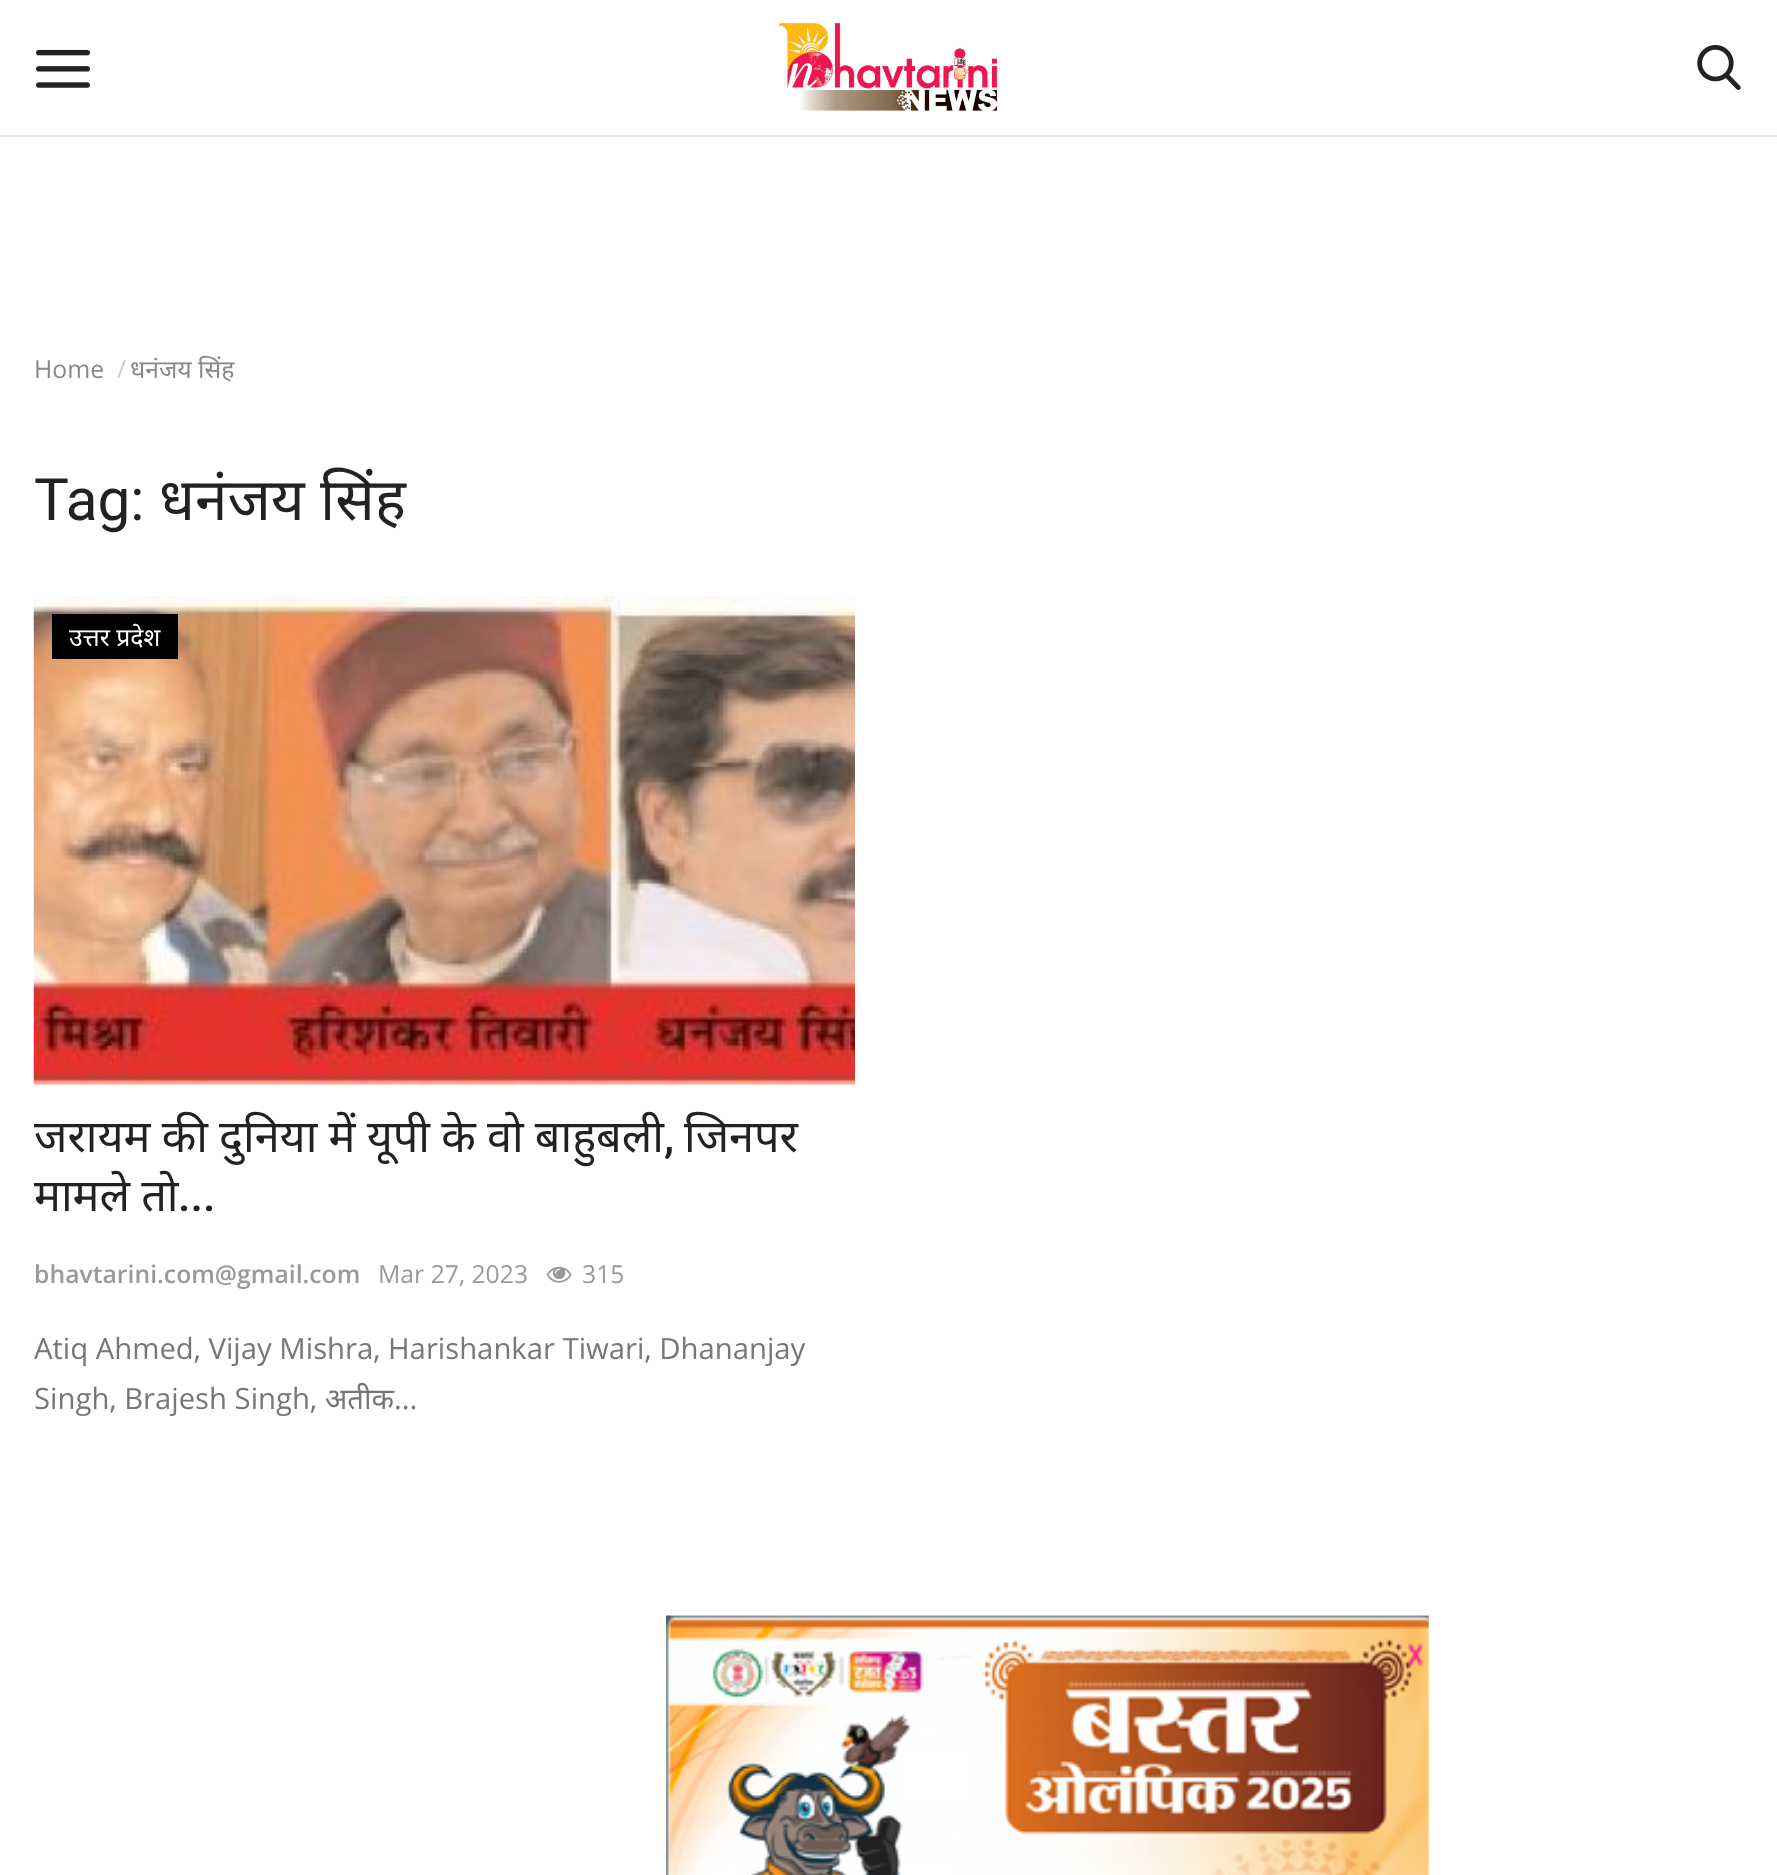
<svg xmlns="http://www.w3.org/2000/svg" width="1777" height="1875">
<rect width="100%" height="100%" fill="#fff"/>
<rect y="135" width="1777" height="2" fill="#e6e6e6"/>
<image x="36" y="49" width="54" height="39" href="media/1.png"/>
<image x="778" y="22" width="220" height="90" href="media/2.png"/>
<image x="1697" y="45" width="44" height="45" href="media/3.png"/>
<text x="34" y="378" style="font-family:Open Sans;font-size:24.75px;fill:#888">Home</text>
<text x="117" y="378" style="font-family:Open Sans;font-size:24.75px;fill:#ccc">/</text>
<text x="130" y="378" style="font-family:Noto Sans;font-size:24.75px;fill:#888">धनंजय सिंह</text>
<text x="34" y="520" style="font-family:Roboto;font-size:58.5px;fill:#222">Tag:</text>
<text x="159" y="520" style="font-family:Noto Sans;font-size:58.5px;fill:#222">धनंजय सिंह</text>
<rect x="34" y="596" width="821" height="489" fill="#fafafa"/>
<image x="33" y="596" width="822" height="489" href="media/4.png"/>
<rect x="52" y="614" width="126" height="45" fill="#000"/>
<text x="69" y="646" style="font-family:Noto Sans;font-size:24.75px;fill:#fff">उत्तर प्रदेश</text>
<text x="34" y="1152" word-spacing="-0.5" style="font-family:Noto Sans;font-size:45px;fill:#222">जरायम की दुनिया में यूपी के वो बाहुबली</text>
<text x="664" y="1152" style="font-family:Roboto;font-size:45px;font-weight:500;fill:#222">,</text>
<text x="684" y="1152" style="font-family:Noto Sans;font-size:45px;fill:#222">जिनपर</text>
<text x="34" y="1211" word-spacing="-0.5" style="font-family:Noto Sans;font-size:45px;fill:#222">मामले तो</text>
<text x="178" y="1211" style="font-family:Roboto;font-size:45px;font-weight:500;fill:#222">...</text>
<text x="34" y="1283" style="font-family:Open Sans;font-size:24.75px;font-weight:600;fill:#999">bhavtarini.com@gmail.com</text>
<text x="378" y="1283" style="font-family:Open Sans;font-size:24.75px;fill:#999">Mar 27, 2023</text>
<image x="546" y="1266" width="26" height="17" href="media/5.png"/>
<text x="582" y="1283" style="font-family:Open Sans;font-size:24.75px;fill:#999">315</text>
<text x="34" y="1359" style="font-family:Open Sans;font-size:29.25px;fill:#777">Atiq Ahmed, Vijay Mishra, Harishankar Tiwari, Dhananjay</text>
<text x="34" y="1409" style="font-family:Open Sans;font-size:29.25px;fill:#777">Singh, Brajesh Singh,</text>
<text x="325" y="1409" style="font-family:Noto Sans;font-size:29.25px;fill:#777">अतीक</text>
<text x="394" y="1409" style="font-family:Open Sans;font-size:29.25px;fill:#777">...</text>
<image x="666" y="1615" width="763" height="260" href="media/6.png"/>
</svg>
